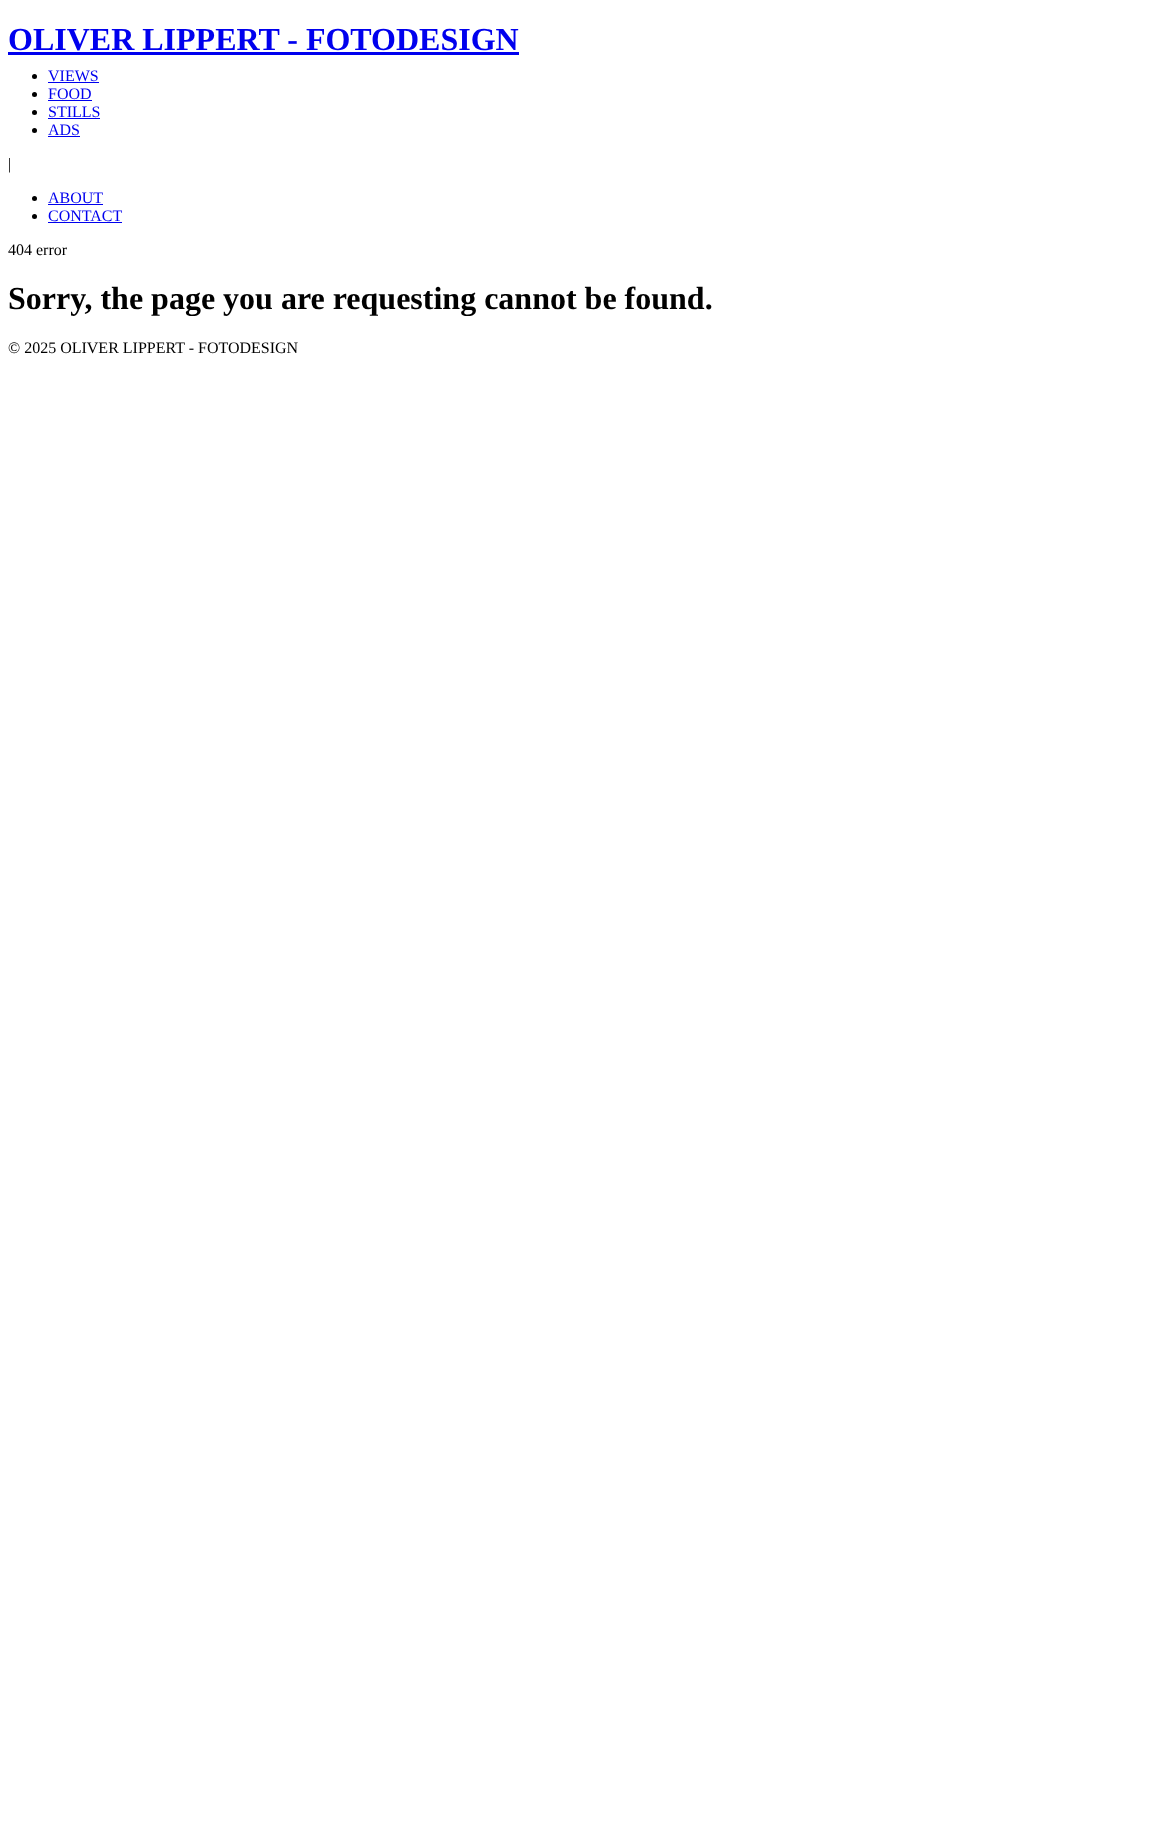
<svg xmlns="http://www.w3.org/2000/svg" width="1166" height="1826">
<rect width="100%" height="100%" fill="#fff"/>
<text x="8" y="50" style="font-family:Liberation Serif;font-size:32px;font-weight:bold;fill:#00e">OLIVER LIPPERT - FOTODESIGN</text>
<rect x="8" y="52" width="511" height="3" fill="#00e"/>
<circle cx="34.5" cy="76.5" r="2.5" fill="#000"/>
<text x="48" y="81" style="font-family:Liberation Serif;font-size:16px;fill:#00e">VIEWS</text>
<rect x="48" y="82" width="51" height="1" fill="#00e"/>
<circle cx="34.5" cy="94.5" r="2.5" fill="#000"/>
<text x="48" y="99" style="font-family:Liberation Serif;font-size:16px;fill:#00e">FOOD</text>
<rect x="48" y="100" width="44" height="1" fill="#00e"/>
<circle cx="34.5" cy="112.5" r="2.5" fill="#000"/>
<text x="48" y="117" style="font-family:Liberation Serif;font-size:16px;fill:#00e">STILLS</text>
<rect x="48" y="118" width="52" height="1" fill="#00e"/>
<circle cx="34.5" cy="130.5" r="2.5" fill="#000"/>
<text x="48" y="135" style="font-family:Liberation Serif;font-size:16px;fill:#00e">ADS</text>
<rect x="48" y="136" width="32" height="1" fill="#00e"/>
<text x="8" y="169" style="font-family:Liberation Serif;font-size:16px;fill:#000">|</text>
<circle cx="34.5" cy="198.5" r="2.5" fill="#000"/>
<text x="48" y="203" style="font-family:Liberation Serif;font-size:16px;fill:#00e">ABOUT</text>
<rect x="48" y="204" width="55" height="1" fill="#00e"/>
<circle cx="34.5" cy="216.5" r="2.5" fill="#000"/>
<text x="48" y="221" style="font-family:Liberation Serif;font-size:16px;fill:#00e">CONTACT</text>
<rect x="48" y="222" width="74" height="1" fill="#00e"/>
<text x="8" y="255" style="font-family:Liberation Serif;font-size:16px;fill:#000">404 error</text>
<text x="8" y="309" style="font-family:Liberation Serif;font-size:32px;font-weight:bold;fill:#000">Sorry, the page you are requesting cannot be found.</text>
<text x="8" y="353" style="font-family:Liberation Serif;font-size:16px;fill:#000">© 2025 OLIVER LIPPERT - FOTODESIGN</text>
</svg>
